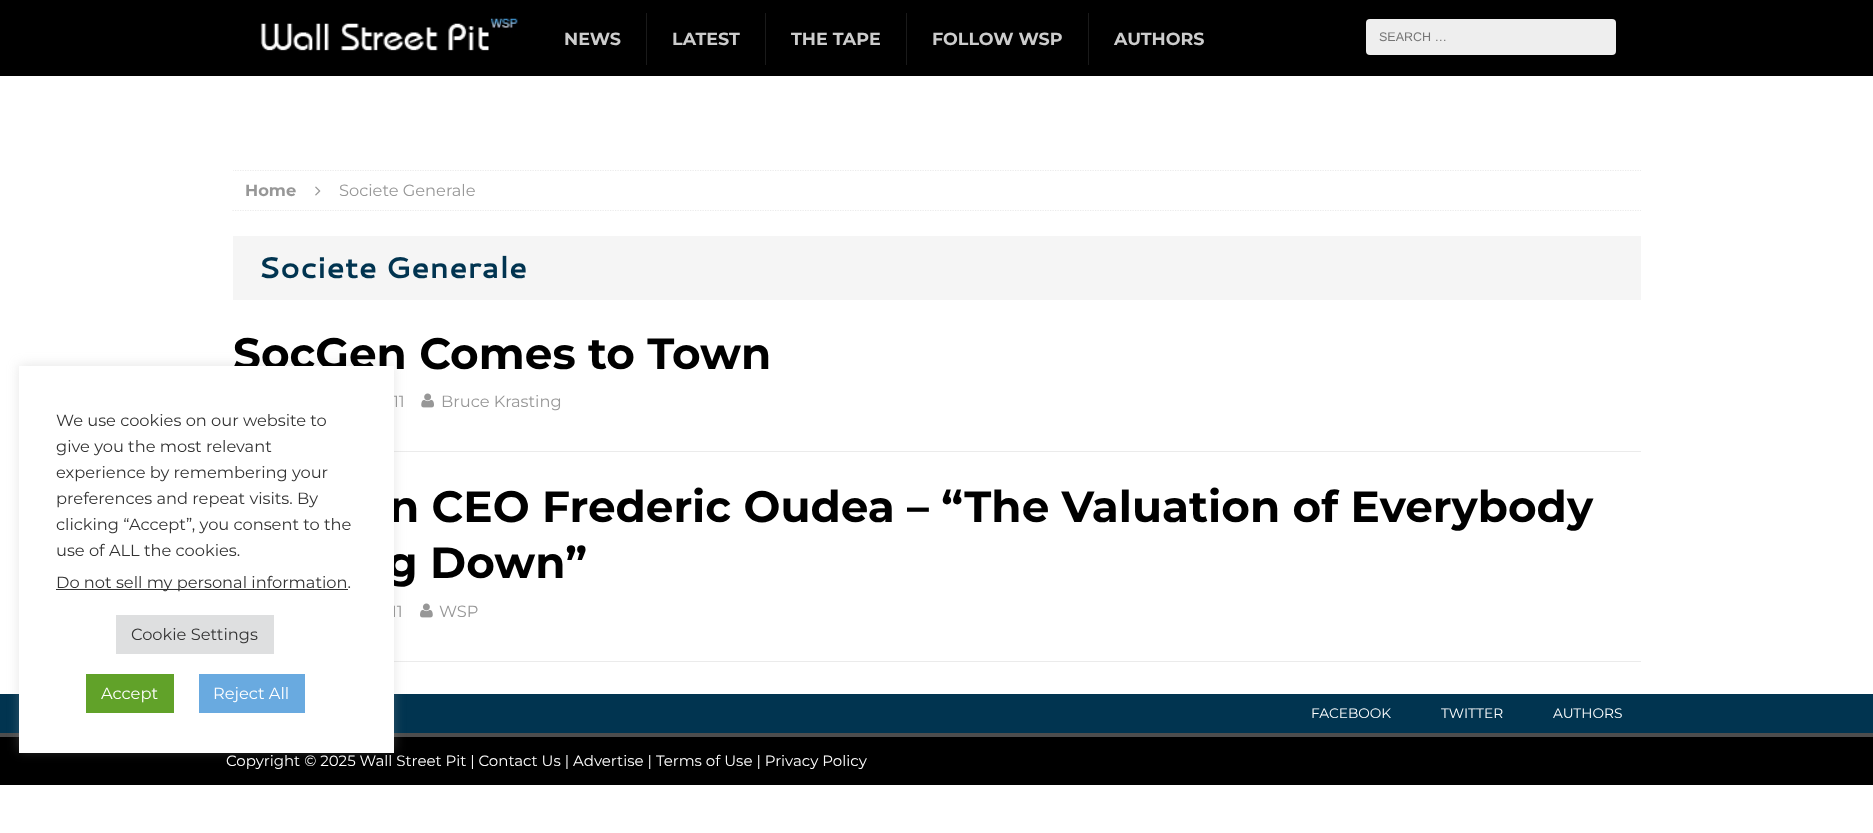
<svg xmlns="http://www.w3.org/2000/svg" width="1873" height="833">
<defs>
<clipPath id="clip1"><rect x="233" y="170" width="1408" height="518"/></clipPath>
</defs>
<rect width="100%" height="100%" fill="#fff"/>
<rect width="1873" height="76" fill="#000"/>
<image x="260" y="18" width="258" height="33" href="media/1.png"/>
<text x="564" y="45" style="font-family:Montserrat;font-size:17.5px;font-weight:bold;fill:#ccc">NEWS</text>
<rect x="646" y="13" width="1" height="52" fill="#1a1a1a"/>
<text x="672" y="45" style="font-family:Montserrat;font-size:17.5px;font-weight:bold;fill:#ccc">LATEST</text>
<rect x="765" y="13" width="1" height="52" fill="#1a1a1a"/>
<text x="791" y="45" style="font-family:Montserrat;font-size:17.5px;font-weight:bold;fill:#ccc">THE TAPE</text>
<rect x="906" y="13" width="1" height="52" fill="#1a1a1a"/>
<text x="932" y="45" style="font-family:Montserrat;font-size:17.5px;font-weight:bold;fill:#ccc">FOLLOW WSP</text>
<rect x="1088" y="13" width="1" height="52" fill="#1a1a1a"/>
<text x="1114" y="45" style="font-family:Montserrat;font-size:17.5px;font-weight:bold;fill:#ccc">AUTHORS</text>
<rect x="1366" y="19" width="250" height="36" rx="4" fill="#eee"/>
<text x="1379" y="41" style="font-family:Liberation Sans;font-size:12.5px;fill:#757575">SEARCH …</text>
<rect x="394" y="451" width="1247" height="1" fill="#ebebeb"/>
<rect x="394" y="661" width="1247" height="1" fill="#ebebeb"/>
<rect y="694" width="1873" height="39" fill="#013450"/>
<rect y="737" width="1873" height="48" fill="#000"/>
<rect y="733" width="1873" height="4" fill="#4d4d4d"/>
<rect x="19" y="365" width="375" height="386" fill="#acabab4d" filter="blur(6px)"/>
<text x="233" y="369" style="font-family:Montserrat;font-size:43.75px;font-weight:bold;fill:#000">SocGen Comes to Town</text>
<text x="393" y="407" style="font-family:Montserrat;font-size:16.25px;fill:#979797">11</text>
<text x="389" y="522" style="font-family:Montserrat;font-size:43.75px;font-weight:bold;fill:#000">n CEO Frederic Oudea – “The Valuation of Everybody</text>
<text x="387" y="578" style="font-family:Montserrat;font-size:43.75px;font-weight:bold;fill:#000">g Down”</text>
<text x="391" y="617" style="font-family:Montserrat;font-size:16.25px;fill:#979797">11</text>
<rect x="19" y="366" width="375" height="387" fill="#fff"/>
<text x="56" y="426" style="font-family:Montserrat;font-size:16.25px;fill:#333">We use cookies on our website to</text>
<text x="56" y="452" style="font-family:Montserrat;font-size:16.25px;fill:#333">give you the most relevant</text>
<text x="56" y="478" style="font-family:Montserrat;font-size:16.25px;fill:#333">experience by remembering your</text>
<text x="56" y="504" style="font-family:Montserrat;font-size:16.25px;fill:#333">preferences and repeat visits. By</text>
<text x="56" y="530" style="font-family:Montserrat;font-size:16.25px;fill:#333">clicking “Accept”, you consent to the</text>
<text x="56" y="556" style="font-family:Montserrat;font-size:16.25px;fill:#333">use of ALL the cookies.</text>
<rect x="56" y="589" width="292" height="1" fill="#333"/>
<text x="56" y="588" style="font-family:Montserrat;font-size:16.25px;fill:#333">Do not sell my personal information.</text>
<rect x="116" y="615" width="158" height="39" fill="#dedfe0"/>
<text x="131" y="640" style="font-family:Montserrat;font-size:16.25px;fill:#333">Cookie Settings</text>
<rect x="86" y="674" width="88" height="39" fill="#61a229"/>
<text x="101" y="699" style="font-family:Montserrat;font-size:16.25px;fill:#fff">Accept</text>
<rect x="199" y="674" width="106" height="39" fill="#69aae0"/>
<text x="213" y="699" style="font-family:Montserrat;font-size:16.25px;fill:#fff">Reject All</text>
<g clip-path="url(#clip1)">
<path d="M232.5 170.5h1408.5" fill="none" stroke="#ebebeb" stroke-width="1.2" stroke-dasharray="1.25 1.25"/>
</g>
<path d="M232.5 210.5h1408.5" fill="none" stroke="#ebebeb" stroke-width="1.2" stroke-dasharray="1.25 1.25"/>
<text x="245" y="196" style="font-family:Montserrat;font-size:16.25px;font-weight:bold;fill:#979797">Home</text>
<image x="315" y="186" width="6" height="10" href="media/2.png"/>
<text x="339" y="196" style="font-family:Montserrat;font-size:16.25px;fill:#979797">Societe Generale</text>
<rect x="233" y="236" width="1408" height="64" fill="#f5f5f5"/>
<text x="258" y="278" style="font-family:Cantarell;font-size:30px;font-weight:bold;fill:#013450">Societe Generale</text>
<image x="421" y="393" width="13" height="15" href="media/3.png"/>
<text x="441" y="407" style="font-family:Montserrat;font-size:16.25px;fill:#979797">Bruce Krasting</text>
<image x="420" y="603" width="13" height="15" href="media/4.png"/>
<text x="439" y="617" style="font-family:Montserrat;font-size:16.25px;fill:#979797">WSP</text>
<text x="1311" y="718" style="font-family:Montserrat;font-size:13.75px;fill:#fff">FACEBOOK</text>
<text x="1441" y="718" style="font-family:Montserrat;font-size:13.75px;fill:#fff">TWITTER</text>
<text x="1553" y="718" style="font-family:Montserrat;font-size:13.75px;fill:#fff">AUTHORS</text>
<text x="226" y="766" style="font-family:Montserrat;font-size:15px;fill:#fff">Copyright © 2025 Wall Street Pit | Contact Us | Advertise | Terms of Use | Privacy Policy</text>
</svg>
